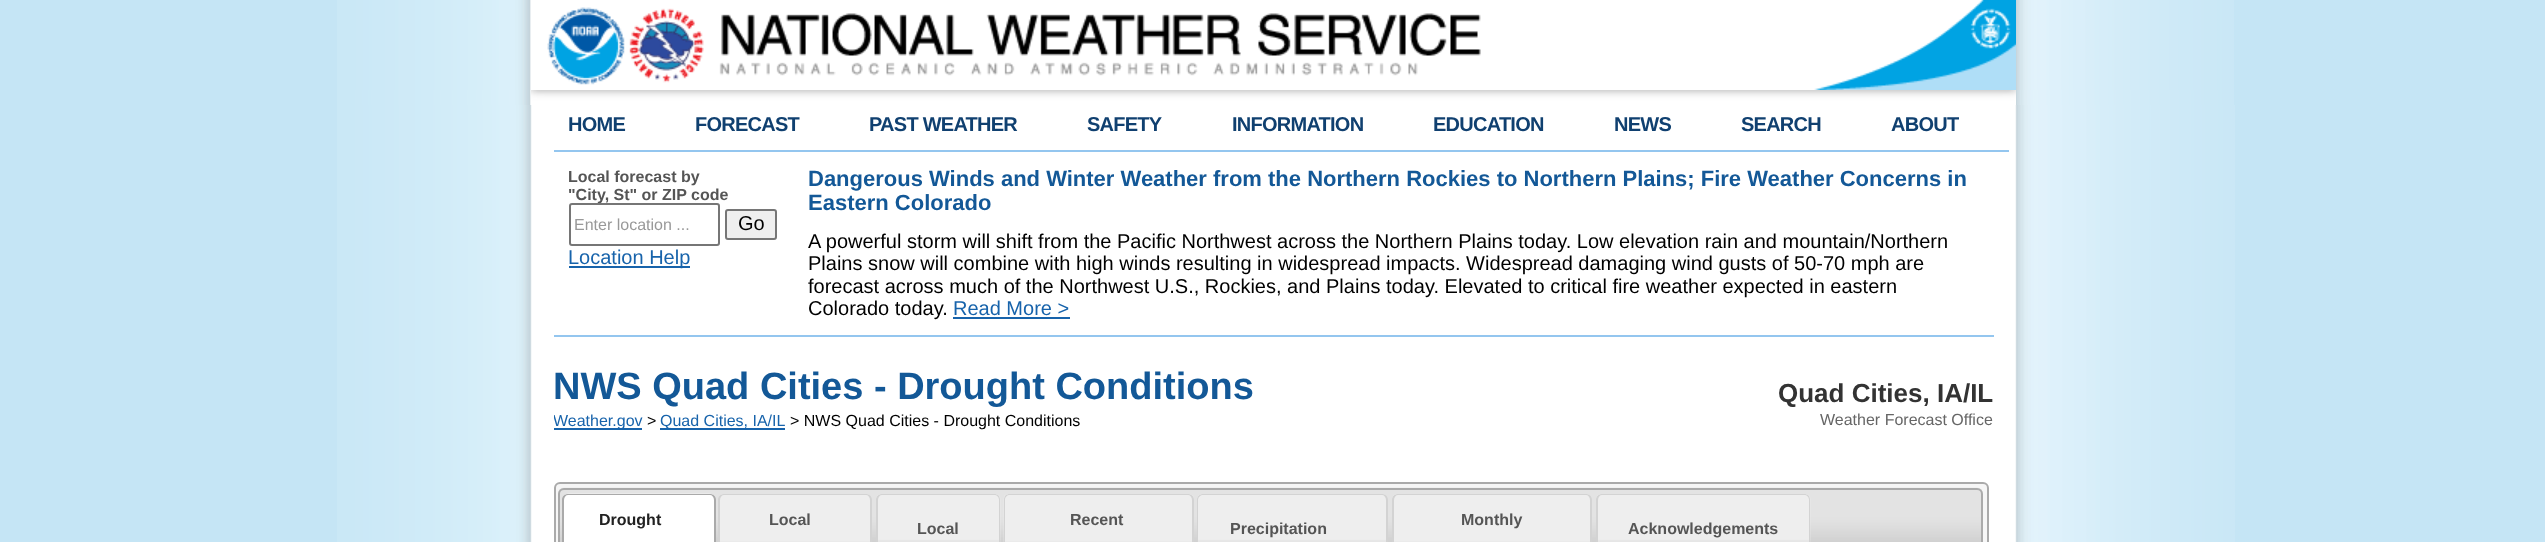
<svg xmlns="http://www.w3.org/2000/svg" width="2545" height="542">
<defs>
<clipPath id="clip1"><rect x="554" y="167" width="1440" height="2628"/></clipPath>
</defs>
<rect width="100%" height="100%" fill="#c5e5f5"/>
<image x="337" y="0" width="1897" height="90" href="media/1.png"/>
<image x="547" y="7" width="934" height="78" href="media/2.png"/>
<image x="1814" y="0" width="202" height="90" href="media/3.png"/>
<image x="337" y="90" width="1897" height="15" href="media/4.png"/>
<image x="531" y="90" width="1485" height="15" href="media/5.png"/>
<image x="337" y="105" width="1898" height="437" href="media/6.png"/>
<rect x="554" y="150" width="1455" height="2" fill="#94c6ef"/>
<text x="568" y="131" style="font-family:Liberation Sans;font-size:20px;font-weight:bold;letter-spacing:-0.75px;fill:#104070">HOME</text>
<text x="695" y="131" style="font-family:Liberation Sans;font-size:20px;font-weight:bold;letter-spacing:-0.75px;fill:#104070">FORECAST</text>
<text x="869" y="131" style="font-family:Liberation Sans;font-size:20px;font-weight:bold;letter-spacing:-0.75px;fill:#104070">PAST WEATHER</text>
<text x="1087" y="131" style="font-family:Liberation Sans;font-size:20px;font-weight:bold;letter-spacing:-0.75px;fill:#104070">SAFETY</text>
<text x="1232" y="131" style="font-family:Liberation Sans;font-size:20px;font-weight:bold;letter-spacing:-0.75px;fill:#104070">INFORMATION</text>
<text x="1433" y="131" style="font-family:Liberation Sans;font-size:20px;font-weight:bold;letter-spacing:-0.75px;fill:#104070">EDUCATION</text>
<text x="1614" y="131" style="font-family:Liberation Sans;font-size:20px;font-weight:bold;letter-spacing:-0.75px;fill:#104070">NEWS</text>
<text x="1741" y="131" style="font-family:Liberation Sans;font-size:20px;font-weight:bold;letter-spacing:-0.75px;fill:#104070">SEARCH</text>
<text x="1891" y="131" style="font-family:Liberation Sans;font-size:20px;font-weight:bold;letter-spacing:-0.75px;fill:#104070">ABOUT</text>
<text x="568" y="182" style="font-family:Liberation Sans;font-size:16px;font-weight:bold;fill:#555">Local forecast by</text>
<text x="568" y="200" style="font-family:Liberation Sans;font-size:16px;font-weight:bold;fill:#555">"City, St" or ZIP code</text>
<rect x="570" y="204" width="149" height="41" rx="2" fill="#fff" stroke="#767676" stroke-width="2"/>
<text x="574" y="230" style="font-family:Liberation Sans;font-size:16px;fill:#999">Enter location ...</text>
<rect x="726" y="210" width="50" height="29" rx="2" fill="#efefef" stroke="#767676" stroke-width="2"/>
<text x="738" y="230" style="font-family:Liberation Sans;font-size:20px;fill:#000">Go</text>
<rect x="569" y="266" width="121" height="2" fill="#1763ab"/>
<text x="568" y="264" style="font-family:Liberation Sans;font-size:20px;fill:#1763ab">Location Help</text>
<text x="808" y="186" style="font-family:Liberation Sans;font-size:22px;font-weight:bold;fill:#135897">Dangerous Winds and Winter Weather from the Northern Rockies to Northern Plains; Fire Weather Concerns in</text>
<text x="808" y="210" style="font-family:Liberation Sans;font-size:22px;font-weight:bold;fill:#135897">Eastern Colorado</text>
<text x="808" y="248" style="font-family:Liberation Sans;font-size:20px;fill:#000">A powerful storm will shift from the Pacific Northwest across the Northern Plains today. Low elevation rain and mountain/Northern</text>
<text x="808" y="270" style="font-family:Liberation Sans;font-size:20px;fill:#000">Plains snow will combine with high winds resulting in widespread impacts. Widespread damaging wind gusts of 50-70 mph are</text>
<text x="808" y="293" style="font-family:Liberation Sans;font-size:20px;fill:#000">forecast across much of the Northwest U.S., Rockies, and Plains today. Elevated to critical fire weather expected in eastern</text>
<text x="808" y="315" style="font-family:Liberation Sans;font-size:20px;fill:#000">Colorado today.</text>
<text x="953" y="315" style="font-family:Liberation Sans;font-size:20px;fill:#1763ab">Read More &gt;</text>
<rect x="953" y="317" width="117" height="2" fill="#1763ab"/>
<rect x="554" y="335" width="1440" height="2" fill="#94c6ef"/>
<text x="553" y="399" style="font-family:Liberation Sans;font-size:38px;font-weight:bold;fill:#135897">NWS Quad Cities - Drought Conditions</text>
<rect x="554" y="428" width="88" height="2" fill="#1763ab"/>
<g clip-path="url(#clip1)">
<text x="553" y="426" style="font-family:Liberation Sans;font-size:16px;fill:#1763ab">Weather.gov</text>
</g>
<text x="647" y="426" style="font-family:Liberation Sans;font-size:16px;fill:#000">&gt;</text>
<rect x="660" y="428" width="125" height="2" fill="#1763ab"/>
<text x="660" y="426" style="font-family:Liberation Sans;font-size:16px;fill:#1763ab">Quad Cities, IA/IL</text>
<text x="790" y="426" style="font-family:Liberation Sans;font-size:16px;fill:#000">&gt; NWS Quad Cities - Drought Conditions</text>
<text x="1778" y="402" style="font-family:Liberation Sans;font-size:26px;font-weight:bold;fill:#333">Quad Cities, IA/IL</text>
<text x="1820" y="425" style="font-family:Liberation Sans;font-size:16px;fill:#666">Weather Forecast Office</text>
<rect x="555" y="483" width="1433" height="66" rx="5" fill="#f6f6f6" stroke="#aaa" stroke-width="2"/>
<image x="558" y="487" width="1425" height="55" href="media/7.png"/>
<rect x="559" y="489" width="1423" height="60" rx="5" fill="none" stroke="#aaa" stroke-width="2"/>
<image x="562" y="493" width="154" height="49" href="media/8.png"/>
<path d="M568 494h142c3 0 6 2 6 6v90h-154v-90c0-4 3-6 6-6zm0 1h142c2 0 4 2 4 5v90h-150v-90c0-3 2-5 4-5z" fill="#aaa" fill-rule="evenodd"/>
<text x="599" y="525" style="font-family:Liberation Sans;font-size:16px;font-weight:bold;fill:#212121">Drought</text>
<image x="718" y="494" width="154" height="48" href="media/9.png"/>
<path d="M724 494h142c3 0 6 2 6 6v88h-154v-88c0-4 3-6 6-6zm0 1h142c2 0 4 2 4 5v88h-150v-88c0-3 2-5 4-5z" fill="#d3d3d3" fill-rule="evenodd"/>
<text x="769" y="525" style="font-family:Liberation Sans;font-size:16px;font-weight:bold;fill:#555">Local</text>
<image x="1003" y="494" width="191" height="48" href="media/10.png"/>
<path d="M1010 494h178c3 0 6 2 6 6v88h-190v-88c0-4 2-6 6-6zm0 1h178c2 0 4 2 4 5v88h-187v-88c0-3 2-5 5-5z" fill="#d3d3d3" fill-rule="evenodd"/>
<text x="1070" y="525" style="font-family:Liberation Sans;font-size:16px;font-weight:bold;fill:#555">Recent</text>
<image x="1392" y="494" width="200" height="48" href="media/11.png"/>
<path d="M1398 494h188c3 0 6 2 6 6v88h-200v-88c0-4 3-6 6-6zm0 1h188c2 0 4 2 4 5v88h-196v-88c0-3 2-5 4-5z" fill="#d3d3d3" fill-rule="evenodd"/>
<text x="1461" y="525" style="font-family:Liberation Sans;font-size:16px;font-weight:bold;fill:#555">Monthly</text>
<image x="876" y="494" width="125" height="48" href="media/12.png"/>
<path d="M882 494h112c4 0 6 2 6 6v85h-124v-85c0-4 3-6 6-6zm0 1h112c3 0 5 2 5 5v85h-121v-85c0-3 2-5 4-5z" fill="#d3d3d3" fill-rule="evenodd"/>
<text x="917" y="534" style="font-family:Liberation Sans;font-size:16px;font-weight:bold;fill:#555">Local</text>
<image x="1197" y="494" width="191" height="48" href="media/13.png"/>
<path d="M1203 494h179c3 0 6 2 6 6v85h-191v-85c0-4 3-6 6-6zm0 1h179c2 0 4 2 4 5v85h-188v-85c0-3 3-5 5-5z" fill="#d3d3d3" fill-rule="evenodd"/>
<text x="1230" y="534" style="font-family:Liberation Sans;font-size:16px;font-weight:bold;fill:#555">Precipitation</text>
<image x="1596" y="494" width="215" height="48" href="media/14.png"/>
<path d="M1602 494h202c4 0 6 2 6 6v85h-214v-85c0-4 3-6 6-6zm0 1h202c3 0 5 2 5 5v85h-211v-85c0-3 2-5 4-5z" fill="#d3d3d3" fill-rule="evenodd"/>
<text x="1628" y="534" style="font-family:Liberation Sans;font-size:16px;font-weight:bold;fill:#555">Acknowledgements</text>
</svg>
